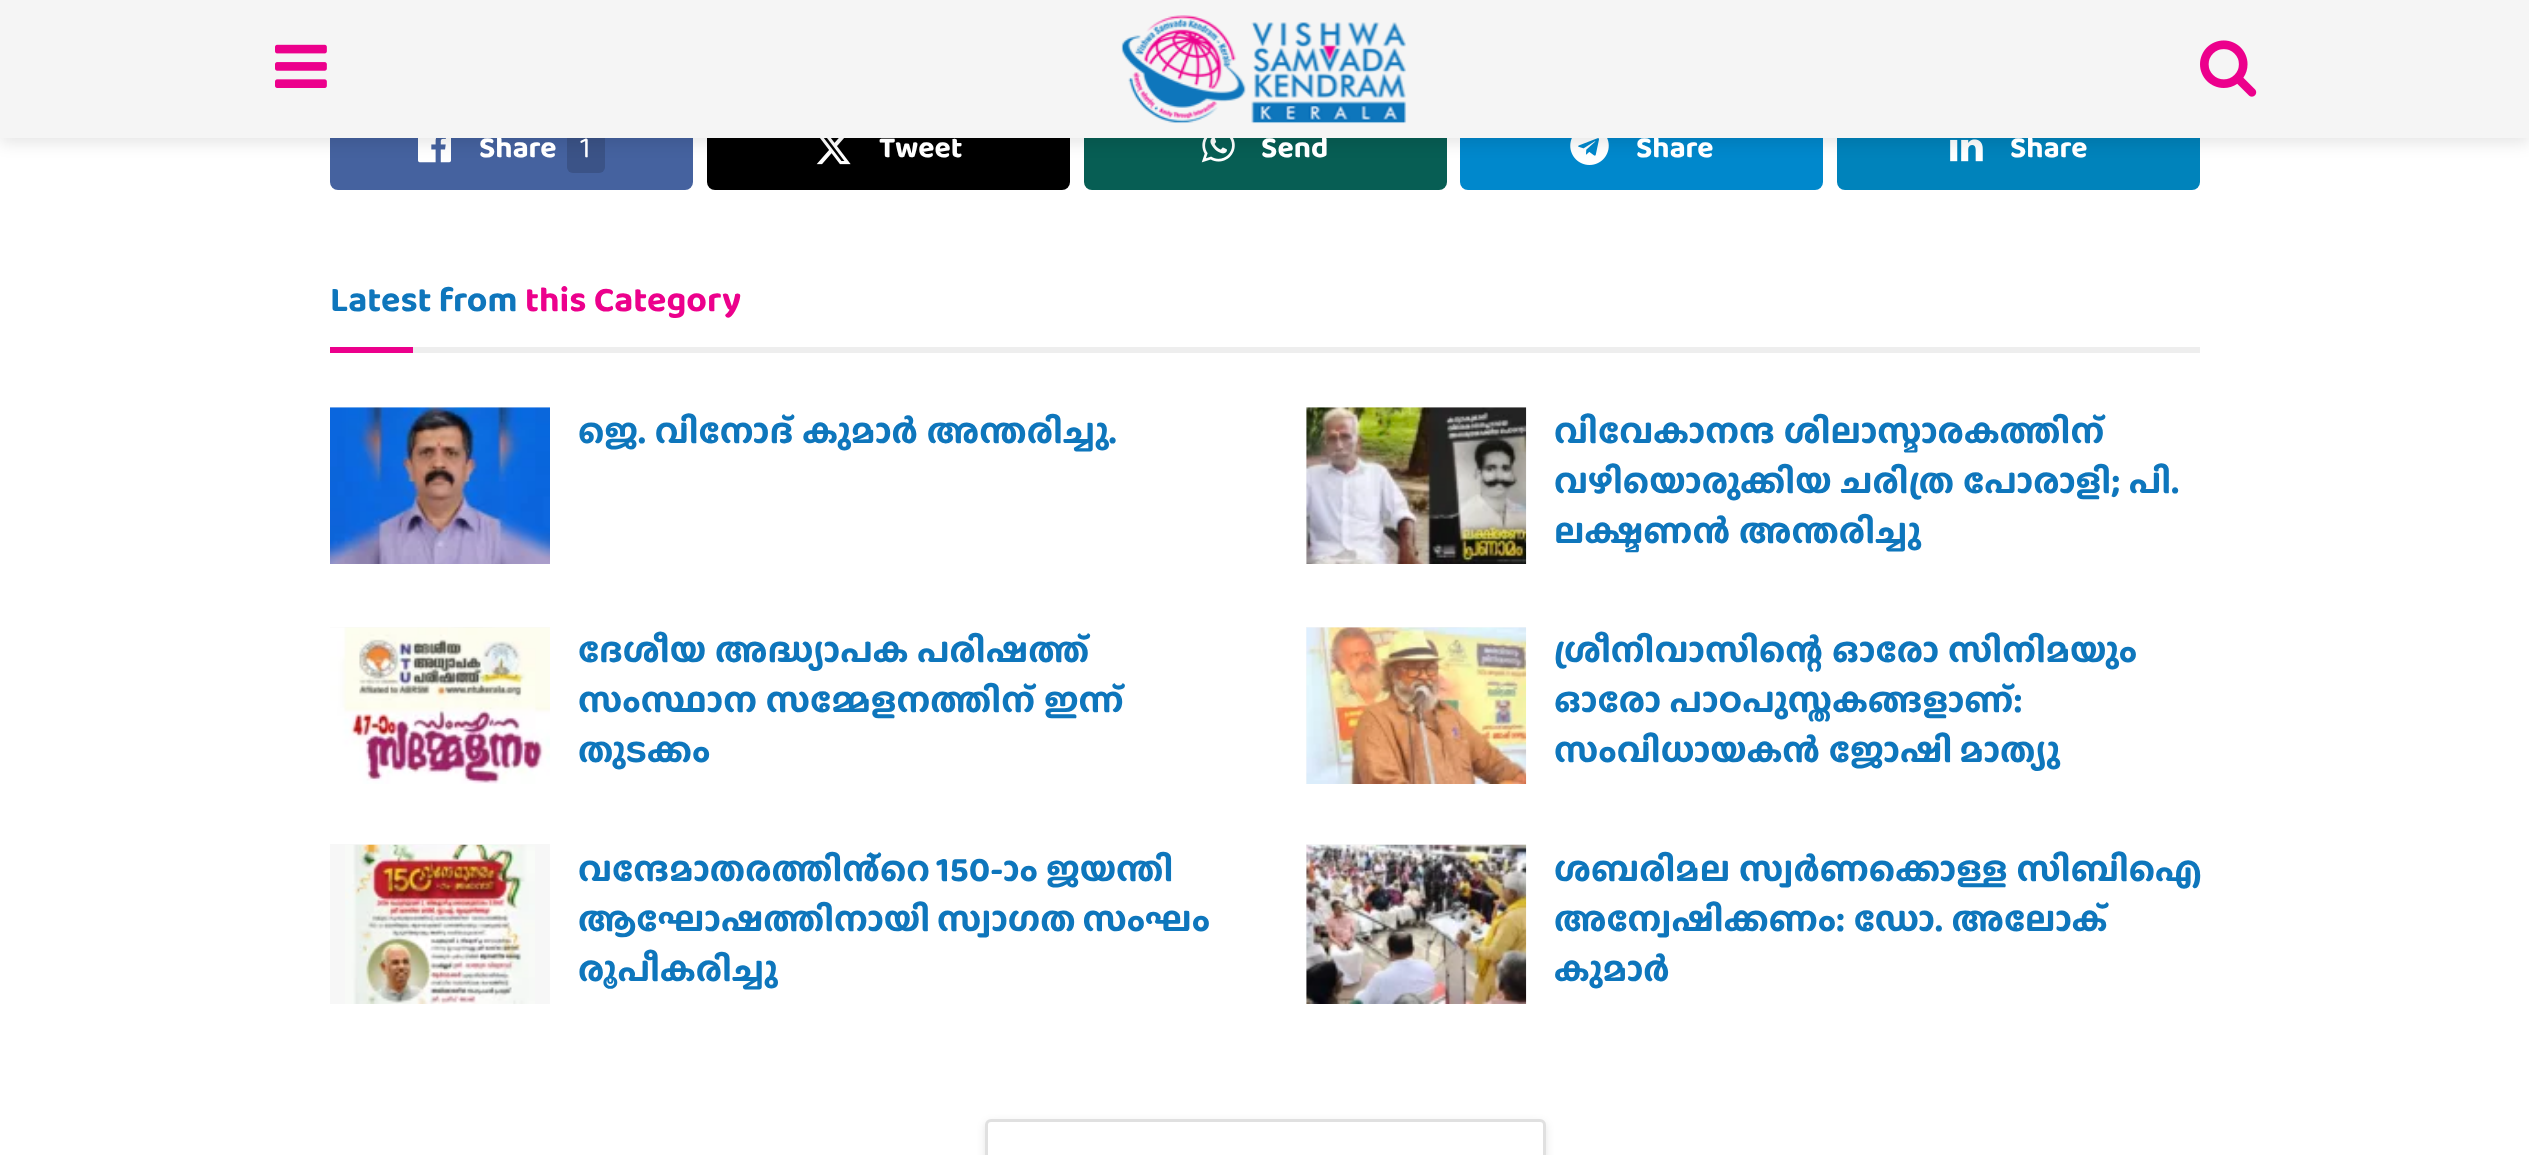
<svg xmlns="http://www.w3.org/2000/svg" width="2529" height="1155">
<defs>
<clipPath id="clip1"><rect x="1554" y="407" width="646" height="151"/></clipPath>
<clipPath id="clip2"><rect x="578" y="627" width="646" height="149"/></clipPath>
<clipPath id="clip3"><rect x="1554" y="627" width="646" height="149"/></clipPath>
<clipPath id="clip4"><rect x="578" y="844" width="646" height="152"/></clipPath>
<clipPath id="clip5"><rect x="1554" y="844" width="646" height="152"/></clipPath>
</defs>
<rect width="100%" height="100%" fill="#fff"/>
<rect x="330" y="102" width="363" height="88" rx="8" fill="#45629f"/>
<image x="418" y="138" width="33" height="25" href="media/4.png"/>
<rect x="567" y="118" width="38" height="55" rx="6" fill="#3b5387"/>
<rect x="707" y="102" width="363" height="88" rx="8" fill="#000"/>
<image x="816" y="138" width="35" height="27" href="media/5.png"/>
<rect x="1084" y="102" width="363" height="88" rx="8" fill="#075e54"/>
<image x="1201" y="138" width="34" height="25" href="media/6.png"/>
<rect x="1460" y="102" width="363" height="88" rx="8" fill="#08c"/>
<image x="1570" y="138" width="39" height="27" href="media/7.png"/>
<rect x="1837" y="102" width="363" height="88" rx="8" fill="#0083bb"/>
<image x="1950" y="139" width="33" height="23" href="media/8.png"/>
<rect y="6" width="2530" height="137" fill="#0000001a" filter="blur(8px)"/>
<text x="479" y="157" style="font-family:'Baloo Chettan 2';font-size:30px;font-weight:bold;fill:#fff">Share</text>
<text x="1261" y="157" style="font-family:'Baloo Chettan 2';font-size:30px;font-weight:bold;fill:#fff">Send</text>
<text x="1636" y="157" style="font-family:'Baloo Chettan 2';font-size:30px;font-weight:bold;fill:#fff">Share</text>
<text x="2010" y="157" style="font-family:'Baloo Chettan 2';font-size:30px;font-weight:bold;fill:#fff">Share</text>
<rect width="2529" height="138" fill="#f5f5f5"/>
<image x="275" y="44" width="52" height="44" href="media/1.png"/>
<image x="1121" y="15" width="286" height="109" href="media/2.png"/>
<image x="2200" y="40" width="57" height="57" href="media/3.png"/>
<text x="580" y="157" style="font-family:'Baloo Chettan 2';font-size:30px;fill:#fff">1</text>
<text x="879" y="157" style="font-family:'Baloo Chettan 2';font-size:30px;font-weight:bold;fill:#fff">Tweet</text>
<rect x="413" y="347" width="1787" height="6" fill="#eee"/>
<text x="330" y="311" style="font-family:'Baloo Chettan 2';font-size:35.75px;font-weight:bold;fill:#0e76bc">Latest from</text>
<text x="525" y="311" style="font-family:'Baloo Chettan 2';font-size:35.75px;font-weight:bold;fill:#ec008c">this Category</text>
<rect x="330" y="347" width="83" height="6" fill="#ec008c"/>
<rect x="330" y="407" width="220" height="1" fill="#f7f7f7"/>
<image x="451" y="407" width="44" height="1" href="media/10.png"/>
<image x="330" y="407" width="220" height="157" href="media/9.png"/>
<text x="578" y="443" style="font-family:'Baloo Chettan 2';font-size:35.75px;font-weight:bold;fill:#0e76bc">ജെ. വിനോദ് കുമാര്‍ അന്തരിച്ചു.</text>
<rect x="1306" y="407" width="220" height="157" fill="#f7f7f7"/>
<image x="1427" y="407" width="44" height="1" href="media/12.png"/>
<image x="1306" y="407" width="221" height="157" href="media/11.png"/>
<g clip-path="url(#clip1)">
<text x="1554" y="443" style="font-family:'Baloo Chettan 2';font-size:35.75px;font-weight:bold;fill:#0e76bc">വിവേകാനന്ദ ശിലാസ്മാരകത്തിന്</text>
</g>
<text x="1554" y="493" style="font-family:'Baloo Chettan 2';font-size:35.75px;font-weight:bold;fill:#0e76bc">വഴിയൊരുക്കിയ ചരിത്ര പോരാളി; പി.</text>
<text x="1554" y="543" style="font-family:'Baloo Chettan 2';font-size:35.75px;font-weight:bold;fill:#0e76bc">ലക്ഷ്മണൻ അന്തരിച്ചു</text>
<rect x="330" y="627" width="220" height="1" fill="#f7f7f7"/>
<image x="451" y="627" width="44" height="1" href="media/10.png"/>
<image x="330" y="627" width="220" height="157" href="media/13.png"/>
<text x="578" y="662" style="font-family:'Baloo Chettan 2';font-size:35.75px;font-weight:bold;fill:#0e76bc">ദേശീയ അദ്ധ്യാപക പരിഷത്ത്</text>
<text x="578" y="712" style="font-family:'Baloo Chettan 2';font-size:35.75px;font-weight:bold;fill:#0e76bc">സംസ്ഥാന സമ്മേളനത്തിന് ഇന്ന്</text>
<g clip-path="url(#clip2)">
<text x="578" y="762" style="font-family:'Baloo Chettan 2';font-size:35.75px;font-weight:bold;fill:#0e76bc">തുടക്കം</text>
</g>
<rect x="1306" y="627" width="220" height="157" fill="#f7f7f7"/>
<image x="1427" y="627" width="44" height="1" href="media/12.png"/>
<image x="1306" y="627" width="221" height="157" href="media/14.png"/>
<g clip-path="url(#clip3)">
<text x="1554" y="662" style="font-family:'Baloo Chettan 2';font-size:35.75px;font-weight:bold;fill:#0e76bc">ശ്രീനിവാസിന്റെ ഓരോ സിനിമയും</text>
</g>
<text x="1554" y="712" style="font-family:'Baloo Chettan 2';font-size:35.75px;font-weight:bold;fill:#0e76bc">ഓരോ പാഠപുസ്തകങ്ങളാണ്:</text>
<text x="1554" y="762" style="font-family:'Baloo Chettan 2';font-size:35.75px;font-weight:bold;fill:#0e76bc">സംവിധായകൻ ജോഷി മാത്യു</text>
<rect x="330" y="844" width="220" height="160" fill="#f7f7f7"/>
<image x="345" y="844" width="190" height="160" href="media/15.png"/>
<text x="578" y="881" word-spacing="-1" style="font-family:'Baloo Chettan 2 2';font-size:35.75px;font-weight:bold;fill:#0e76bc">വന്ദേമാതരത്തിൻ്റെ 150-ാം ജയന്തി</text>
<text x="578" y="931" word-spacing="-2" style="font-family:'Baloo Chettan 2 2';font-size:35.75px;font-weight:bold;fill:#0e76bc">ആഘോഷത്തിനായി സ്വാഗത സംഘം</text>
<g clip-path="url(#clip4)">
<text x="578" y="981" style="font-family:'Baloo Chettan 2 2';font-size:35.75px;font-weight:bold;fill:#0e76bc">രൂപീകരിച്ചു</text>
</g>
<rect x="1306" y="844" width="220" height="160" fill="#f7f7f7"/>
<image x="1306" y="844" width="221" height="160" href="media/16.png"/>
<text x="1554" y="881" style="font-family:'Baloo Chettan 2';font-size:35.75px;font-weight:bold;fill:#0e76bc">ശബരിമല സ്വര്‍ണക്കൊള്ള സിബിഐ</text>
<text x="1554" y="931" style="font-family:'Baloo Chettan 2';font-size:35.75px;font-weight:bold;fill:#0e76bc">അന്വേഷിക്കണം: ഡോ. അലോക്</text>
<g clip-path="url(#clip5)">
<text x="1554" y="981" style="font-family:'Baloo Chettan 2';font-size:35.75px;font-weight:bold;fill:#0e76bc">കുമാര്‍</text>
</g>
<rect x="985" y="1122" width="561" height="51" rx="6" fill="#0000001a" filter="blur(4px)"/>
<rect x="986.5" y="1120.5" width="558" height="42" rx="4.5" fill="#fff" stroke="#e0e0e0" stroke-width="3"/>
</svg>
